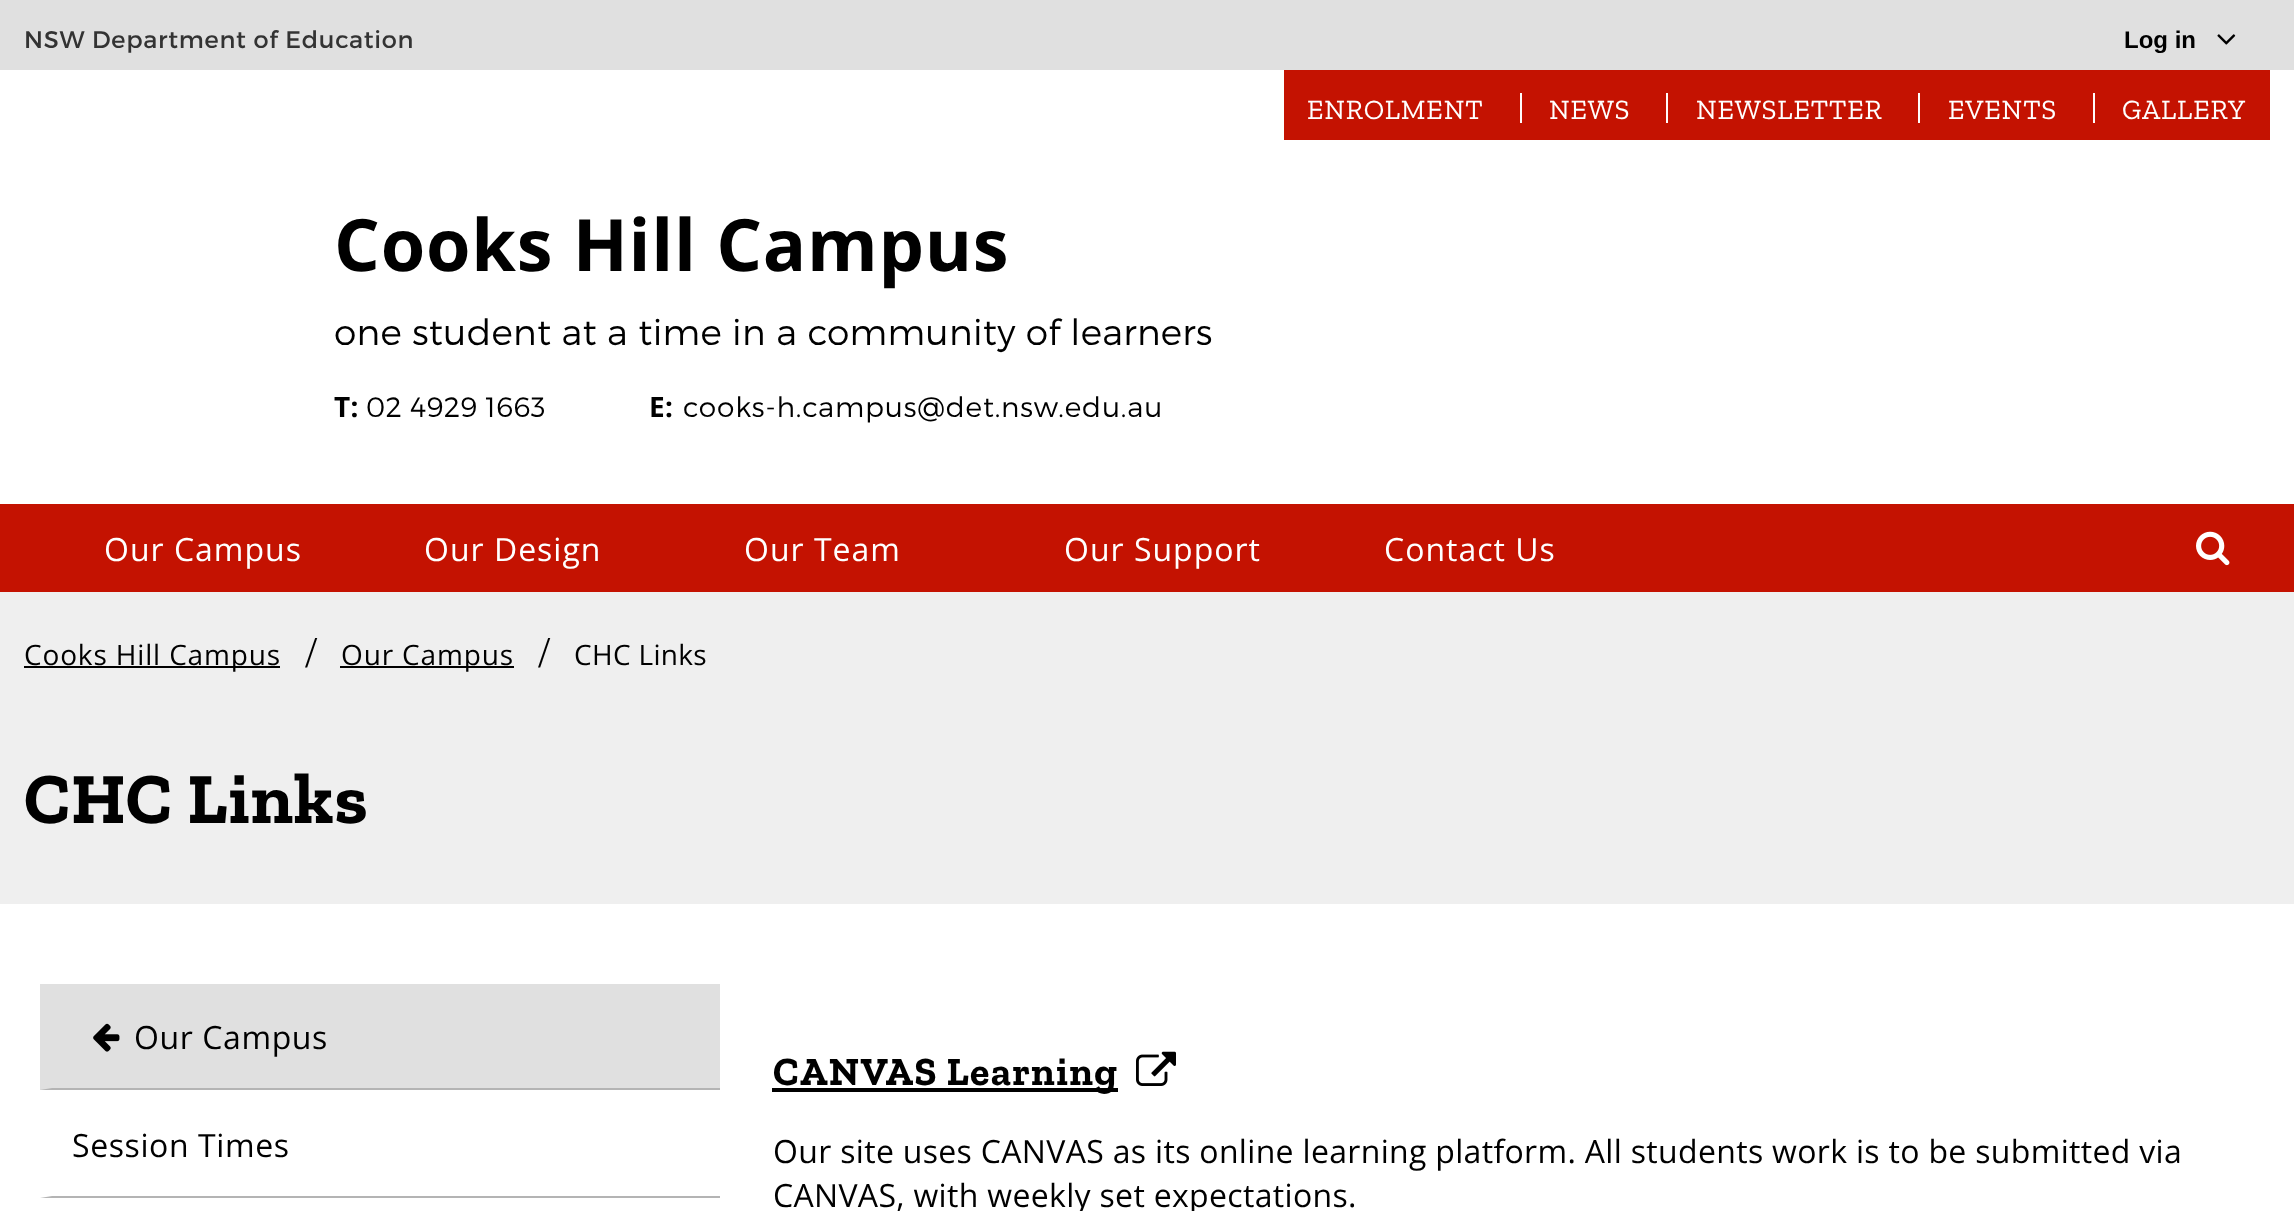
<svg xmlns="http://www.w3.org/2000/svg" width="2294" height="1211">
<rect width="100%" height="100%" fill="#fff"/>
<rect width="2294" height="70" fill="#e0e0e0"/>
<text x="24" y="48" style="font-family:Montserrat;font-size:24px;letter-spacing:0.75px;fill:#333">NSW Department of Education</text>
<text x="2124" y="48" style="font-family:Liberation Sans;font-size:24px;font-weight:bold;fill:#000">Log in</text>
<image x="2217" y="34" width="19" height="11" href="media/1.png"/>
<rect x="1284" y="70" width="986" height="70" fill="#c41201"/>
<text x="1307" y="119" style="font-family:Zilla Slab;font-size:28px;letter-spacing:0.85px;fill:#fff">ENROLMENT</text>
<text x="1517" y="119" style="font-family:Montserrat;font-size:32px;font-weight:300;letter-spacing:0.32px;fill:#fff">|</text>
<text x="1549" y="119" style="font-family:Zilla Slab;font-size:28px;letter-spacing:0.85px;fill:#fff">NEWS</text>
<text x="1663" y="119" style="font-family:Montserrat;font-size:32px;font-weight:300;letter-spacing:0.32px;fill:#fff">|</text>
<text x="1696" y="119" style="font-family:Zilla Slab;font-size:28px;letter-spacing:0.85px;fill:#fff">NEWSLETTER</text>
<text x="1915" y="119" style="font-family:Montserrat;font-size:32px;font-weight:300;letter-spacing:0.32px;fill:#fff">|</text>
<text x="1948" y="119" style="font-family:Zilla Slab;font-size:28px;letter-spacing:0.85px;fill:#fff">EVENTS</text>
<text x="2090" y="119" style="font-family:Montserrat;font-size:32px;font-weight:300;letter-spacing:0.32px;fill:#fff">|</text>
<text x="2122" y="119" style="font-family:Zilla Slab;font-size:28px;letter-spacing:0.85px;fill:#fff">GALLERY</text>
<text x="334" y="271" style="font-family:Open Sans;font-size:72px;font-weight:bold;letter-spacing:0.75px;fill:#000">Cooks Hill Campus</text>
<text x="334" y="345" style="font-family:Montserrat;font-size:36px;font-weight:300;letter-spacing:0.32px;fill:#000">one student at a time in a community of learners</text>
<text x="334" y="417" style="font-family:Noto Sans;font-size:28px;font-weight:bold;letter-spacing:0.32px;fill:#000">T:</text>
<text x="366" y="417" style="font-family:Montserrat;font-size:28px;font-weight:300;letter-spacing:0.32px;fill:#000">02 4929 1663</text>
<text x="649" y="417" style="font-family:Noto Sans;font-size:28px;font-weight:bold;letter-spacing:0.32px;fill:#000">E:</text>
<text x="683" y="417" style="font-family:Montserrat;font-size:28px;font-weight:300;letter-spacing:0.85px;fill:#000">cooks-h.campus@det.nsw.edu.au</text>
<rect y="504" width="2294" height="88" fill="#c41201"/>
<text x="104" y="561" style="font-family:Open Sans;font-size:32px;letter-spacing:1px;fill:#fff">Our Campus</text>
<text x="424" y="561" style="font-family:Open Sans;font-size:32px;letter-spacing:1px;fill:#fff">Our Design</text>
<text x="744" y="561" style="font-family:Open Sans;font-size:32px;letter-spacing:1px;fill:#fff">Our Team</text>
<text x="1064" y="561" style="font-family:Open Sans;font-size:32px;letter-spacing:1px;fill:#fff">Our Support</text>
<text x="1384" y="561" style="font-family:Open Sans;font-size:32px;letter-spacing:1px;fill:#fff">Contact Us</text>
<image x="2196" y="531" width="34" height="35" href="media/2.png"/>
<rect y="592" width="2294" height="312" fill="#efefef"/>
<rect x="24" y="666" width="256" height="2" fill="#000"/>
<text x="24" y="665" style="font-family:Open Sans;font-size:28px;letter-spacing:0.85px;fill:#000">Cooks Hill Campus</text>
<text x="305" y="667" style="font-family:Liberation Serif;font-size:44px;letter-spacing:0.32px;fill:#000">/</text>
<rect x="340" y="666" width="174" height="2" fill="#000"/>
<text x="341" y="665" style="font-family:Open Sans;font-size:28px;letter-spacing:0.85px;fill:#000">Our Campus</text>
<text x="538" y="667" style="font-family:Liberation Serif;font-size:44px;letter-spacing:0.32px;fill:#000">/</text>
<text x="574" y="665" style="font-family:Open Sans;font-size:28px;letter-spacing:0.32px;fill:#000">CHC Links</text>
<text x="24" y="823" style="font-family:Zilla Slab;font-size:72px;font-weight:bold;letter-spacing:0.75px;fill:#000">CHC Links</text>
<rect x="40" y="984" width="680" height="106" fill="#e0e0e0"/>
<path d="M720 1090h-680l12-2h668z" fill="#b4b4b4"/>
<image x="93" y="1023" width="27" height="29" href="media/3.png"/>
<text x="134" y="1049" style="font-family:Open Sans;font-size:32px;letter-spacing:0.6px;fill:#000">Our Campus</text>
<path d="M720 1198h-680l12-2h668z" fill="#b4b4b4"/>
<text x="72" y="1157" style="font-family:Open Sans;font-size:32px;letter-spacing:0.6px;fill:#000">Session Times</text>
<rect x="772" y="1088" width="346" height="4" fill="#000"/>
<text x="773" y="1085" style="font-family:Zilla Slab;font-size:40px;font-weight:bold;letter-spacing:1.25px;fill:#000">CANVAS Learning</text>
<image x="1136" y="1051" width="40" height="35" href="media/4.png"/>
<text x="773" y="1163" style="font-family:Open Sans;font-size:32px;letter-spacing:0.32px;fill:#000">Our site uses CANVAS as its online learning platform. All students work is to be submitted via</text>
<text x="773" y="1207" style="font-family:Open Sans;font-size:32px;letter-spacing:0.32px;fill:#000">CANVAS, with weekly set expectations.</text>
</svg>
